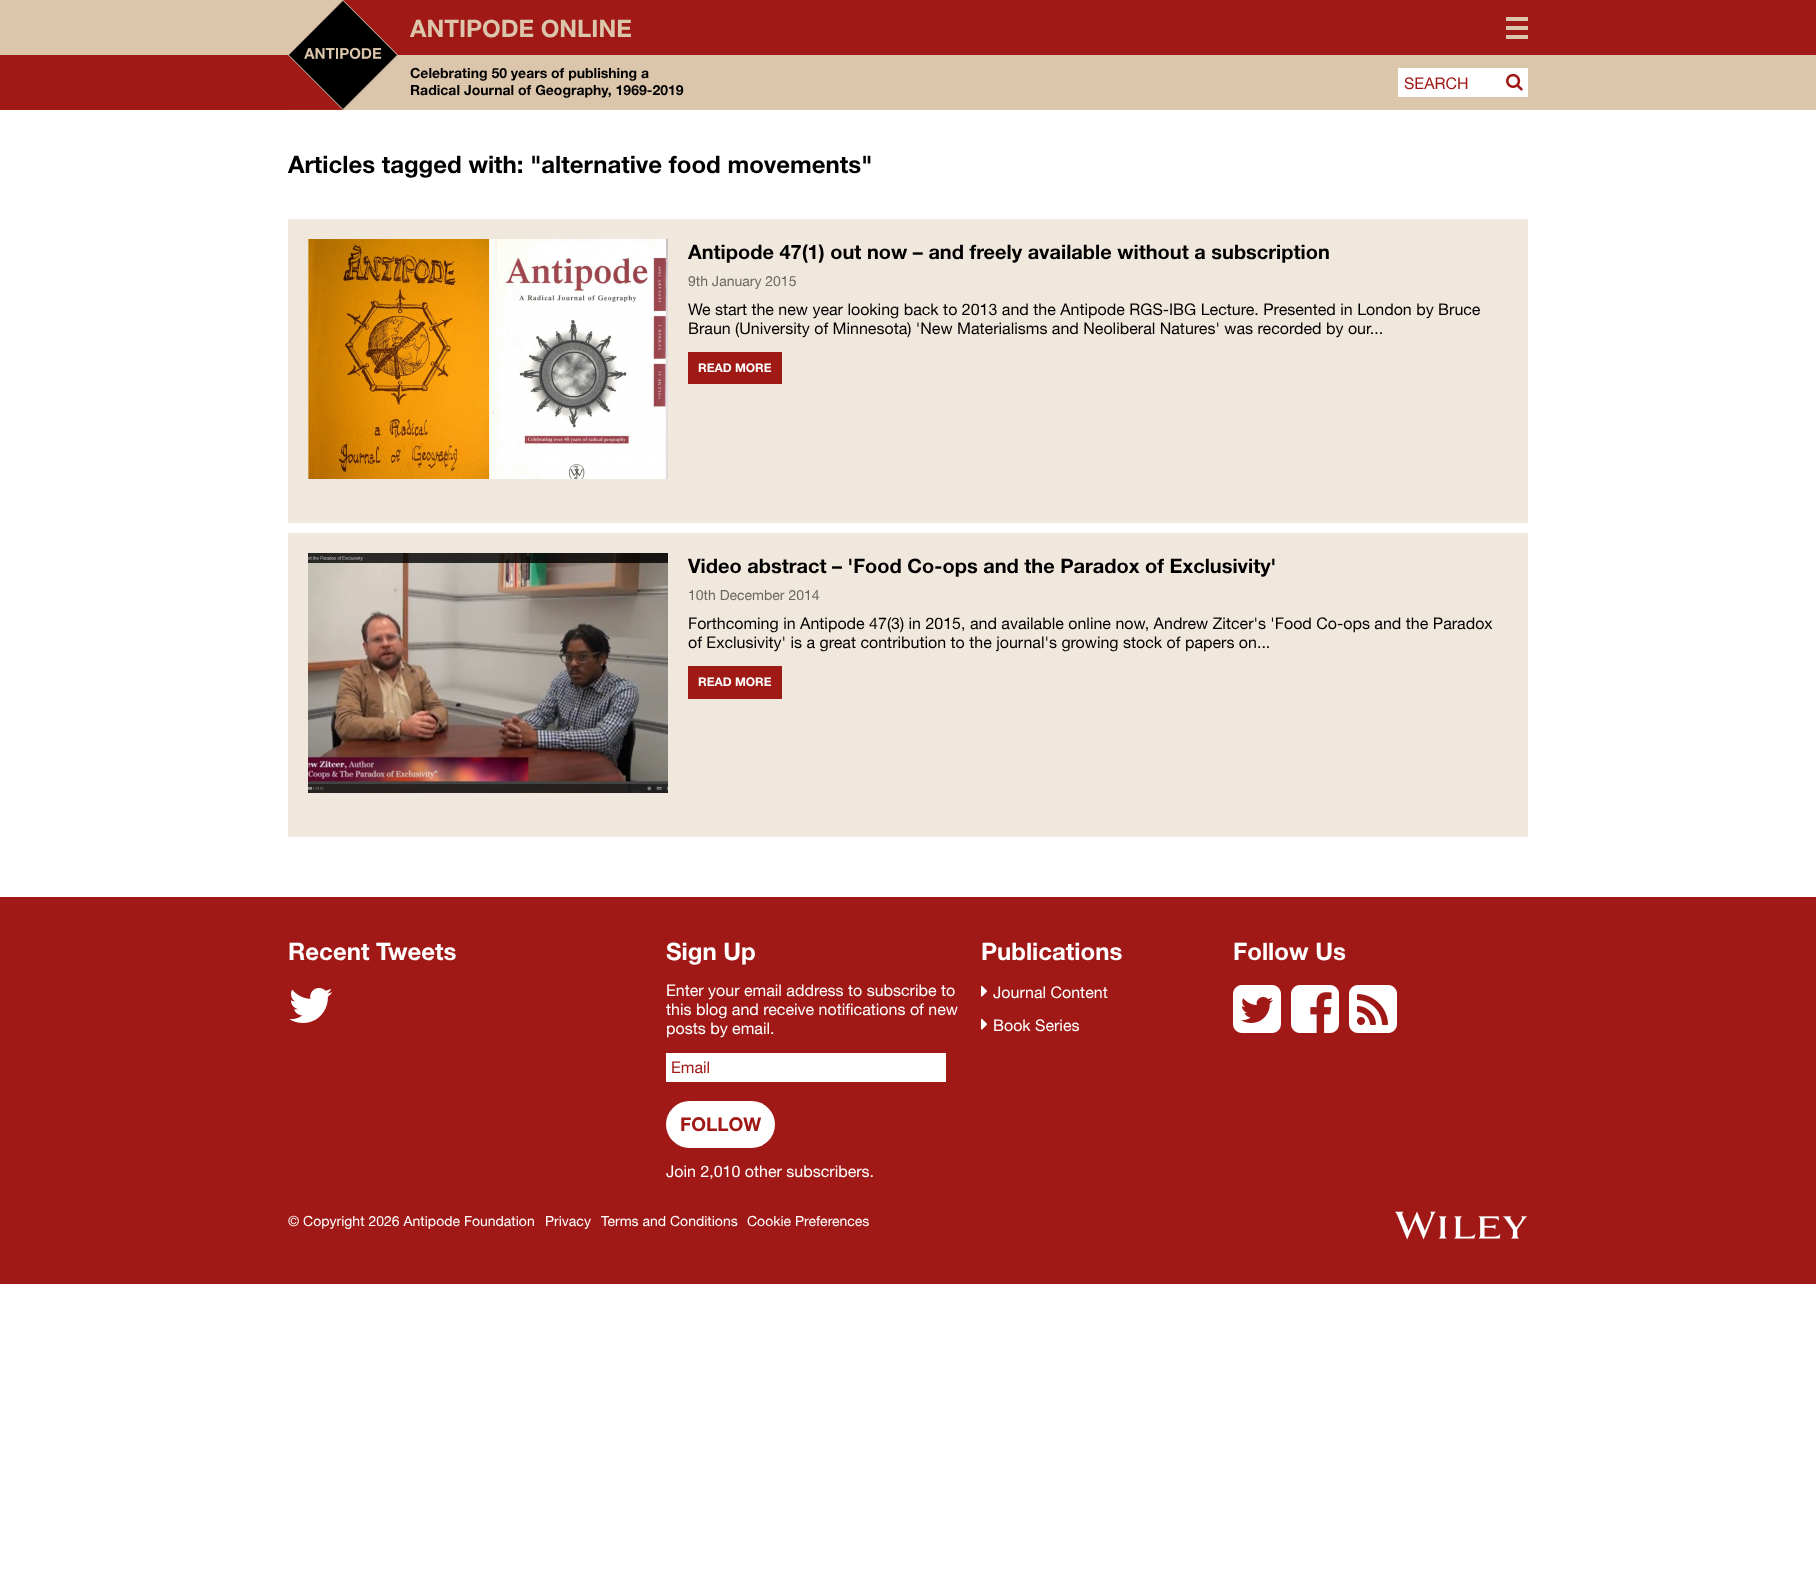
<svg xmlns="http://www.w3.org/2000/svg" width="1816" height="1578">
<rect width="100%" height="100%" fill="#fff"/>
<rect width="288" height="55" fill="#dbc5ab"/>
<rect y="55" width="288" height="55" fill="#a01916"/>
<rect x="289" width="1527" height="55" fill="#a01916"/>
<rect x="288" y="55" width="1528" height="55" fill="#dbc5ab"/>
<image x="288" y="0" width="110" height="110" href="media/1.png"/>
<text x="410" y="37" style="font-family:Helvetica Neue;font-size:24px;font-weight:bold;fill:#dbc5ab">ANTIPODE ONLINE</text>
<text x="410" y="78" style="font-family:Helvetica Neue;font-size:14px;font-weight:bold;fill:#000">Celebrating 50 years of publishing a</text>
<text x="410" y="95" style="font-family:Helvetica Neue;font-size:14px;font-weight:bold;fill:#000">Radical Journal of Geography, 1969-2019</text>
<rect x="1398" y="68" width="130" height="29" fill="#fff"/>
<text x="1404" y="89" style="font-family:Helvetica Neue;font-size:16px;fill:#a01916">SEARCH</text>
<image x="1506" y="73" width="17" height="18" href="media/2.png"/>
<rect x="1506" y="26" width="22" height="4" fill="#dbc5ab"/>
<rect x="1506" y="17" width="22" height="4" fill="#dbc5ab"/>
<rect x="1506" y="35" width="22" height="4" fill="#dbc5ab"/>
<text x="288" y="173" style="font-family:Helvetica Neue;font-size:24px;font-weight:bold;fill:#000">Articles tagged with: "alternative food movements"</text>
<rect x="288" y="219" width="1240" height="304" fill="#f1e8dd"/>
<image x="308" y="239" width="360" height="240" href="media/3.png"/>
<text x="688" y="259" style="font-family:Helvetica Neue;font-size:20px;font-weight:bold;fill:#000">Antipode 47(1) out now – and freely available without a subscription</text>
<text x="688" y="286" style="font-family:Helvetica Neue;font-size:14px;fill:#686861">9th January 2015</text>
<text x="688" y="315" style="font-family:Helvetica Neue;font-size:16px;fill:#000">We start the new year looking back to 2013 and the Antipode RGS-IBG Lecture. Presented in London by Bruce</text>
<text x="688" y="334" style="font-family:Helvetica Neue;font-size:16px;fill:#000">Braun (University of Minnesota) 'New Materialisms and Neoliberal Natures' was recorded by our...</text>
<rect x="688" y="352" width="94" height="32" fill="#9f1915"/>
<text x="698" y="372" style="font-family:Helvetica Neue;font-size:12px;font-weight:bold;fill:#fff">READ MORE</text>
<rect x="288" y="533" width="1240" height="304" fill="#f1e8dd"/>
<image x="308" y="553" width="360" height="240" href="media/4.png"/>
<text x="688" y="573" style="font-family:Helvetica Neue;font-size:20px;font-weight:bold;fill:#000">Video abstract – 'Food Co-ops and the Paradox of Exclusivity'</text>
<text x="688" y="600" style="font-family:Helvetica Neue;font-size:14px;fill:#686861">10th December 2014</text>
<text x="688" y="629" style="font-family:Helvetica Neue;font-size:16px;fill:#000">Forthcoming in Antipode 47(3) in 2015, and available online now, Andrew Zitcer's 'Food Co-ops and the Paradox</text>
<text x="688" y="648" style="font-family:Helvetica Neue;font-size:16px;fill:#000">of Exclusivity' is a great contribution to the journal's growing stock of papers on...</text>
<rect x="688" y="666" width="94" height="33" fill="#9f1915"/>
<text x="698" y="686" style="font-family:Helvetica Neue;font-size:12px;font-weight:bold;fill:#fff">READ MORE</text>
<rect y="897" width="1816" height="387" fill="#a01916"/>
<text x="288" y="960" style="font-family:Helvetica Neue;font-size:24px;font-weight:bold;fill:#fff">Recent Tweets</text>
<image x="289" y="988" width="44" height="35" href="media/5.png"/>
<text x="666" y="960" style="font-family:Helvetica Neue;font-size:24px;font-weight:bold;fill:#fff">Sign Up</text>
<text x="666" y="996" style="font-family:Helvetica Neue;font-size:16px;fill:#fff">Enter your email address to subscribe to</text>
<text x="666" y="1015" style="font-family:Helvetica Neue;font-size:16px;fill:#fff">this blog and receive notifications of new</text>
<text x="666" y="1034" style="font-family:Helvetica Neue;font-size:16px;fill:#fff">posts by email.</text>
<rect x="666" y="1053" width="280" height="29" fill="#fff"/>
<text x="671" y="1073" style="font-family:Helvetica Neue;font-size:16px;fill:#a01916">Email</text>
<rect x="666" y="1101" width="109" height="47" rx="23.5" fill="#fff"/>
<text x="680" y="1131" style="font-family:Helvetica Neue;font-size:19px;font-weight:bold;fill:#a01916">FOLLOW</text>
<text x="666" y="1177" style="font-family:Helvetica Neue;font-size:16px;fill:#fff">Join 2,010 other subscribers.</text>
<text x="981" y="960" style="font-family:Helvetica Neue;font-size:24px;font-weight:bold;fill:#fff">Publications</text>
<image x="981" y="985" width="7" height="12" href="media/6.png"/>
<text x="993" y="998" style="font-family:Helvetica Neue;font-size:16px;fill:#fff">Journal Content</text>
<image x="981" y="1018" width="7" height="12" href="media/6.png"/>
<text x="993" y="1031" style="font-family:Helvetica Neue;font-size:16px;fill:#fff">Book Series</text>
<text x="1233" y="960" style="font-family:Helvetica Neue;font-size:24px;font-weight:bold;fill:#fff">Follow Us</text>
<image x="1233" y="985" width="48" height="48" href="media/7.png"/>
<image x="1291" y="985" width="48" height="48" href="media/8.png"/>
<image x="1349" y="985" width="48" height="48" href="media/9.png"/>
<text x="288" y="1226" style="font-family:Helvetica Neue;font-size:14px;fill:#fff">© Copyright 2026 Antipode Foundation</text>
<text x="545" y="1226" style="font-family:Helvetica Neue;font-size:14px;fill:#fff">Privacy</text>
<text x="601" y="1226" style="font-family:Helvetica Neue;font-size:14px;fill:#fff">Terms and Conditions</text>
<text x="747" y="1226" style="font-family:Helvetica Neue;font-size:14px;fill:#fff">Cookie Preferences</text>
<image x="1395" y="1211" width="133" height="29" href="media/10.png"/>
</svg>
